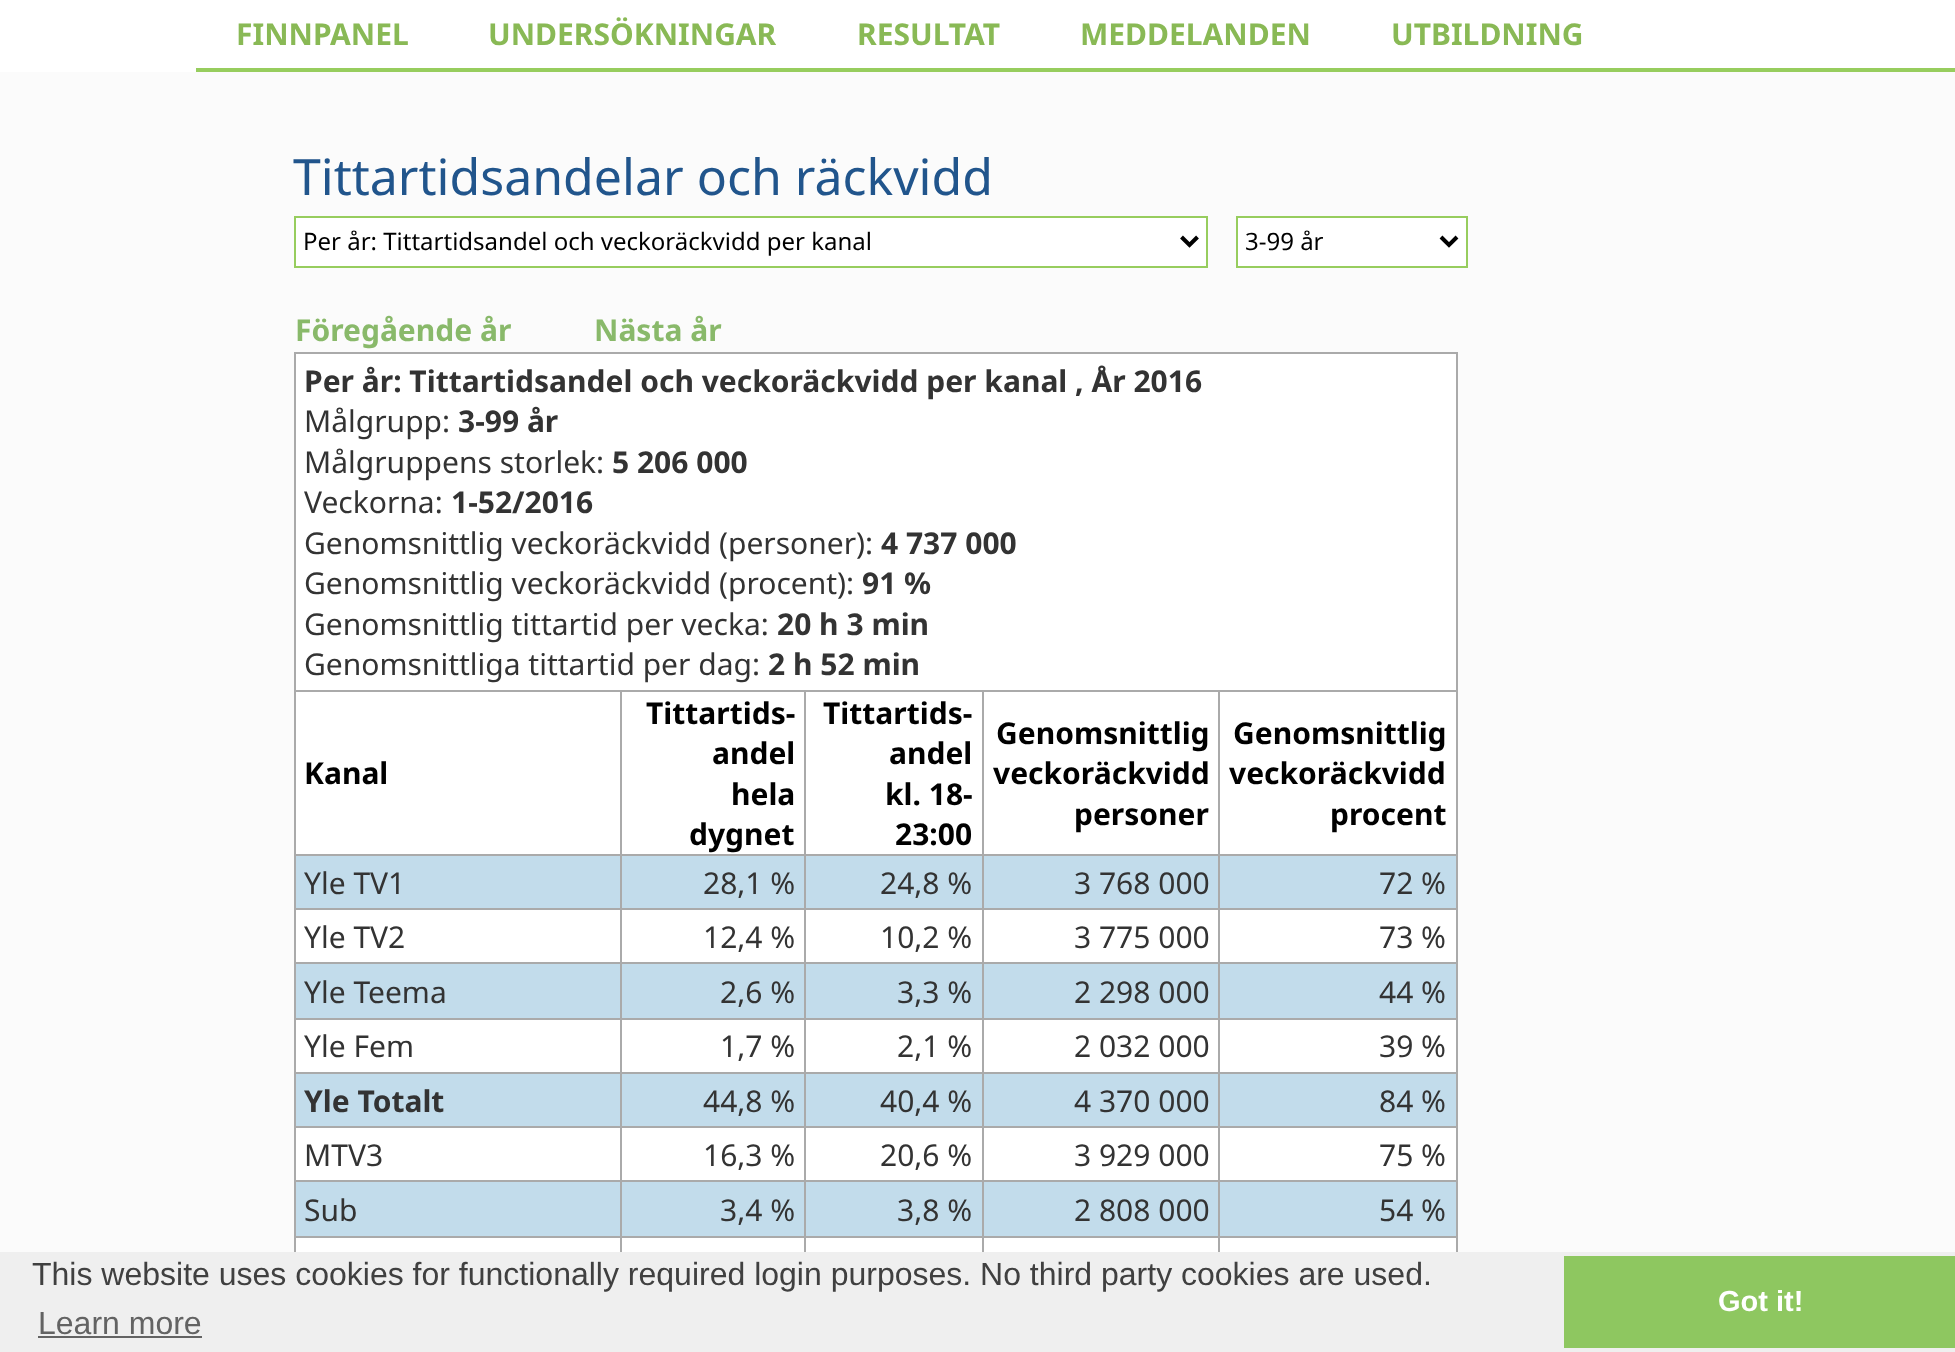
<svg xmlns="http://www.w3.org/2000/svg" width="1955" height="1352">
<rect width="100%" height="100%" fill="#fff"/>
<rect x="196" y="68" width="1759" height="4" fill="#97cd5e"/>
<text x="236" y="45" style="font-family:Noto Sans;font-size:30px;font-weight:bold;fill:#89b955">FINNPANEL</text>
<text x="488" y="45" style="font-family:Noto Sans;font-size:30px;font-weight:bold;fill:#89b955">UNDERSÖKNINGAR</text>
<text x="857" y="45" style="font-family:Noto Sans;font-size:30px;font-weight:bold;fill:#89b955">RESULTAT</text>
<text x="1080" y="45" style="font-family:Noto Sans;font-size:30px;font-weight:bold;fill:#89b955">MEDDELANDEN</text>
<text x="1391" y="45" style="font-family:Noto Sans;font-size:30px;font-weight:bold;fill:#89b955">UTBILDNING</text>
<rect y="72" width="1955" height="1180" fill="#fbfbfb"/>
<text x="293" y="195" style="font-family:Noto Sans;font-size:50px;fill:#21558c">Tittartidsandelar och räckvidd</text>
<rect x="295" y="217" width="912" height="50" fill="#fff" stroke="#97cd5e" stroke-width="2"/>
<path d="M1181.5 237l8 8l8-8" fill="none" stroke="#000" stroke-width="4"/>
<text x="303" y="250" style="font-family:Noto Sans;font-size:24px;fill:#000">Per år: Tittartidsandel och veckoräckvidd per kanal</text>
<rect x="1237" y="217" width="230" height="50" fill="#fff" stroke="#97cd5e" stroke-width="2"/>
<path d="M1441 237l8 8l8-8" fill="none" stroke="#000" stroke-width="4"/>
<text x="1245" y="250" style="font-family:Noto Sans;font-size:24px;fill:#000">3-99 år</text>
<text x="295" y="341" style="font-family:Noto Sans;font-size:30px;font-weight:bold;fill:#89b96a">Föregående år</text>
<text x="594" y="341" style="font-family:Noto Sans;font-size:30px;font-weight:bold;fill:#89b96a">Nästa år</text>
<rect x="296" y="354" width="1160" height="336" fill="#fff"/>
<rect x="294" y="352" width="1164" height="2" fill="#aaa"/>
<rect x="1218" y="690" width="240" height="2" fill="#aaa"/>
<rect x="1218" y="854" width="240" height="2" fill="#aaa"/>
<rect x="1218" y="908" width="240" height="2" fill="#aaa"/>
<rect x="1218" y="962" width="240" height="2" fill="#aaa"/>
<rect x="1218" y="1018" width="240" height="2" fill="#aaa"/>
<rect x="1218" y="1072" width="240" height="2" fill="#aaa"/>
<rect x="1218" y="1126" width="240" height="2" fill="#aaa"/>
<rect x="1218" y="1180" width="240" height="2" fill="#aaa"/>
<rect x="1218" y="1236" width="240" height="2" fill="#aaa"/>
<rect x="1456" y="1236" width="2" height="16" fill="#aaa"/>
<rect x="1456" y="1180" width="2" height="58" fill="#aaa"/>
<rect x="1456" y="1126" width="2" height="56" fill="#aaa"/>
<rect x="1456" y="1072" width="2" height="56" fill="#aaa"/>
<rect x="1456" y="1018" width="2" height="56" fill="#aaa"/>
<rect x="1456" y="962" width="2" height="58" fill="#aaa"/>
<rect x="1456" y="908" width="2" height="56" fill="#aaa"/>
<rect x="1456" y="854" width="2" height="56" fill="#aaa"/>
<rect x="1456" y="690" width="2" height="166" fill="#aaa"/>
<rect x="1456" y="352" width="2" height="340" fill="#aaa"/>
<rect x="1218" y="1236" width="2" height="16" fill="#aaa"/>
<rect x="982" y="1236" width="238" height="2" fill="#aaa"/>
<rect x="1218" y="1180" width="2" height="58" fill="#aaa"/>
<rect x="982" y="1180" width="238" height="2" fill="#aaa"/>
<rect x="1218" y="1126" width="2" height="56" fill="#aaa"/>
<rect x="982" y="1126" width="238" height="2" fill="#aaa"/>
<rect x="1218" y="1072" width="2" height="56" fill="#aaa"/>
<rect x="982" y="1072" width="238" height="2" fill="#aaa"/>
<rect x="1218" y="1018" width="2" height="56" fill="#aaa"/>
<rect x="982" y="1018" width="238" height="2" fill="#aaa"/>
<rect x="1218" y="962" width="2" height="58" fill="#aaa"/>
<rect x="982" y="962" width="238" height="2" fill="#aaa"/>
<rect x="1218" y="908" width="2" height="56" fill="#aaa"/>
<rect x="982" y="908" width="238" height="2" fill="#aaa"/>
<rect x="1218" y="854" width="2" height="56" fill="#aaa"/>
<rect x="982" y="854" width="238" height="2" fill="#aaa"/>
<rect x="1218" y="690" width="2" height="166" fill="#aaa"/>
<rect x="982" y="690" width="238" height="2" fill="#aaa"/>
<rect x="982" y="1236" width="2" height="16" fill="#aaa"/>
<rect x="804" y="1236" width="180" height="2" fill="#aaa"/>
<rect x="982" y="1180" width="2" height="58" fill="#aaa"/>
<rect x="804" y="1180" width="180" height="2" fill="#aaa"/>
<rect x="982" y="1126" width="2" height="56" fill="#aaa"/>
<rect x="804" y="1126" width="180" height="2" fill="#aaa"/>
<rect x="982" y="1072" width="2" height="56" fill="#aaa"/>
<rect x="804" y="1072" width="180" height="2" fill="#aaa"/>
<rect x="982" y="1018" width="2" height="56" fill="#aaa"/>
<rect x="804" y="1018" width="180" height="2" fill="#aaa"/>
<rect x="982" y="962" width="2" height="58" fill="#aaa"/>
<rect x="804" y="962" width="180" height="2" fill="#aaa"/>
<rect x="982" y="908" width="2" height="56" fill="#aaa"/>
<rect x="804" y="908" width="180" height="2" fill="#aaa"/>
<rect x="982" y="854" width="2" height="56" fill="#aaa"/>
<rect x="804" y="854" width="180" height="2" fill="#aaa"/>
<rect x="982" y="690" width="2" height="166" fill="#aaa"/>
<rect x="804" y="690" width="180" height="2" fill="#aaa"/>
<rect x="804" y="1236" width="2" height="16" fill="#aaa"/>
<rect x="620" y="1236" width="186" height="2" fill="#aaa"/>
<rect x="804" y="1180" width="2" height="58" fill="#aaa"/>
<rect x="620" y="1180" width="186" height="2" fill="#aaa"/>
<rect x="804" y="1126" width="2" height="56" fill="#aaa"/>
<rect x="620" y="1126" width="186" height="2" fill="#aaa"/>
<rect x="804" y="1072" width="2" height="56" fill="#aaa"/>
<rect x="620" y="1072" width="186" height="2" fill="#aaa"/>
<rect x="804" y="1018" width="2" height="56" fill="#aaa"/>
<rect x="620" y="1018" width="186" height="2" fill="#aaa"/>
<rect x="804" y="962" width="2" height="58" fill="#aaa"/>
<rect x="620" y="962" width="186" height="2" fill="#aaa"/>
<rect x="804" y="908" width="2" height="56" fill="#aaa"/>
<rect x="620" y="908" width="186" height="2" fill="#aaa"/>
<rect x="804" y="854" width="2" height="56" fill="#aaa"/>
<rect x="620" y="854" width="186" height="2" fill="#aaa"/>
<rect x="804" y="690" width="2" height="166" fill="#aaa"/>
<rect x="620" y="690" width="186" height="2" fill="#aaa"/>
<rect x="620" y="1236" width="2" height="16" fill="#aaa"/>
<rect x="294" y="1236" width="328" height="2" fill="#aaa"/>
<rect x="620" y="1180" width="2" height="58" fill="#aaa"/>
<rect x="294" y="1180" width="328" height="2" fill="#aaa"/>
<rect x="620" y="1126" width="2" height="56" fill="#aaa"/>
<rect x="294" y="1126" width="328" height="2" fill="#aaa"/>
<rect x="620" y="1072" width="2" height="56" fill="#aaa"/>
<rect x="294" y="1072" width="328" height="2" fill="#aaa"/>
<rect x="620" y="1018" width="2" height="56" fill="#aaa"/>
<rect x="294" y="1018" width="328" height="2" fill="#aaa"/>
<rect x="620" y="962" width="2" height="58" fill="#aaa"/>
<rect x="294" y="962" width="328" height="2" fill="#aaa"/>
<rect x="620" y="908" width="2" height="56" fill="#aaa"/>
<rect x="294" y="908" width="328" height="2" fill="#aaa"/>
<rect x="620" y="854" width="2" height="56" fill="#aaa"/>
<rect x="294" y="854" width="328" height="2" fill="#aaa"/>
<rect x="620" y="690" width="2" height="166" fill="#aaa"/>
<rect x="294" y="690" width="328" height="2" fill="#aaa"/>
<rect x="294" y="1236" width="2" height="16" fill="#aaa"/>
<rect x="294" y="1180" width="2" height="58" fill="#aaa"/>
<rect x="294" y="1126" width="2" height="56" fill="#aaa"/>
<rect x="294" y="1072" width="2" height="56" fill="#aaa"/>
<rect x="294" y="1018" width="2" height="56" fill="#aaa"/>
<rect x="294" y="962" width="2" height="58" fill="#aaa"/>
<rect x="294" y="908" width="2" height="56" fill="#aaa"/>
<rect x="294" y="854" width="2" height="56" fill="#aaa"/>
<rect x="294" y="690" width="2" height="166" fill="#aaa"/>
<rect x="294" y="352" width="2" height="340" fill="#aaa"/>
<text x="304" y="392" style="font-family:Noto Sans;font-size:30px;font-weight:bold;fill:#333">Per år: Tittartidsandel och veckoräckvidd per kanal , År 2016</text>
<text x="304" y="432" style="font-family:Noto Sans;font-size:30px;fill:#333">Målgrupp:</text>
<text x="458" y="432" style="font-family:Noto Sans;font-size:30px;font-weight:bold;fill:#333">3-99 år</text>
<text x="304" y="473" style="font-family:Noto Sans;font-size:30px;fill:#333">Målgruppens storlek:</text>
<text x="612" y="473" style="font-family:Noto Sans;font-size:30px;font-weight:bold;fill:#333">5 206 000</text>
<text x="304" y="513" style="font-family:Noto Sans;font-size:30px;fill:#333">Veckorna:</text>
<text x="451" y="513" style="font-family:Noto Sans;font-size:30px;font-weight:bold;fill:#333">1-52/2016</text>
<text x="304" y="554" style="font-family:Noto Sans;font-size:30px;fill:#333">Genomsnittlig veckoräckvidd (personer):</text>
<text x="881" y="554" style="font-family:Noto Sans;font-size:30px;font-weight:bold;fill:#333">4 737 000</text>
<text x="304" y="594" style="font-family:Noto Sans;font-size:30px;fill:#333">Genomsnittlig veckoräckvidd (procent):</text>
<text x="862" y="594" style="font-family:Noto Sans;font-size:30px;font-weight:bold;fill:#333">91 %</text>
<text x="304" y="635" style="font-family:Noto Sans;font-size:30px;fill:#333">Genomsnittlig tittartid per vecka:</text>
<text x="777" y="635" style="font-family:Noto Sans;font-size:30px;font-weight:bold;fill:#333">20 h 3 min</text>
<text x="304" y="675" style="font-family:Noto Sans;font-size:30px;fill:#333">Genomsnittliga tittartid per dag:</text>
<text x="768" y="675" style="font-family:Noto Sans;font-size:30px;font-weight:bold;fill:#333">2 h 52 min</text>
<rect x="296" y="692" width="324" height="162" fill="#fff"/>
<text x="304" y="784" style="font-family:Noto Sans;font-size:30px;font-weight:bold;fill:#000">Kanal</text>
<rect x="622" y="692" width="182" height="162" fill="#fff"/>
<text x="646" y="724" style="font-family:Noto Sans;font-size:30px;font-weight:bold;fill:#000">Tittartids-</text>
<text x="712" y="764" style="font-family:Noto Sans;font-size:30px;font-weight:bold;fill:#000">andel</text>
<text x="731" y="805" style="font-family:Noto Sans;font-size:30px;font-weight:bold;fill:#000">hela</text>
<text x="689" y="845" style="font-family:Noto Sans;font-size:30px;font-weight:bold;fill:#000">dygnet</text>
<rect x="806" y="692" width="176" height="162" fill="#fff"/>
<text x="823" y="724" style="font-family:Noto Sans;font-size:30px;font-weight:bold;fill:#000">Tittartids-</text>
<text x="889" y="764" style="font-family:Noto Sans;font-size:30px;font-weight:bold;fill:#000">andel</text>
<text x="885" y="805" style="font-family:Noto Sans;font-size:30px;font-weight:bold;fill:#000">kl. 18-</text>
<text x="895" y="845" style="font-family:Noto Sans;font-size:30px;font-weight:bold;fill:#000">23:00</text>
<rect x="984" y="692" width="234" height="162" fill="#fff"/>
<text x="996" y="744" style="font-family:Noto Sans;font-size:30px;font-weight:bold;fill:#000">Genomsnittlig</text>
<text x="993" y="784" style="font-family:Noto Sans;font-size:30px;font-weight:bold;fill:#000">veckoräckvidd</text>
<text x="1074" y="825" style="font-family:Noto Sans;font-size:30px;font-weight:bold;fill:#000">personer</text>
<rect x="1220" y="692" width="236" height="162" fill="#fff"/>
<text x="1233" y="744" style="font-family:Noto Sans;font-size:30px;font-weight:bold;fill:#000">Genomsnittlig</text>
<text x="1229" y="784" style="font-family:Noto Sans;font-size:30px;font-weight:bold;fill:#000">veckoräckvidd</text>
<text x="1330" y="825" style="font-family:Noto Sans;font-size:30px;font-weight:bold;fill:#000">procent</text>
<rect x="296" y="856" width="324" height="52" fill="#c2dceb"/>
<text x="304" y="894" style="font-family:Noto Sans;font-size:30px;fill:#333">Yle TV1</text>
<rect x="622" y="856" width="182" height="52" fill="#c2dceb"/>
<text x="703" y="894" style="font-family:Noto Sans;font-size:30px;fill:#333">28,1 %</text>
<rect x="806" y="856" width="176" height="52" fill="#c2dceb"/>
<text x="880" y="894" style="font-family:Noto Sans;font-size:30px;fill:#333">24,8 %</text>
<rect x="984" y="856" width="234" height="52" fill="#c2dceb"/>
<text x="1074" y="894" style="font-family:Noto Sans;font-size:30px;fill:#333">3 768 000</text>
<rect x="1220" y="856" width="236" height="52" fill="#c2dceb"/>
<text x="1379" y="894" style="font-family:Noto Sans;font-size:30px;fill:#333">72 %</text>
<rect x="296" y="910" width="324" height="52" fill="#fff"/>
<text x="304" y="948" style="font-family:Noto Sans;font-size:30px;fill:#333">Yle TV2</text>
<rect x="622" y="910" width="182" height="52" fill="#fff"/>
<text x="703" y="948" style="font-family:Noto Sans;font-size:30px;fill:#333">12,4 %</text>
<rect x="806" y="910" width="176" height="52" fill="#fff"/>
<text x="880" y="948" style="font-family:Noto Sans;font-size:30px;fill:#333">10,2 %</text>
<rect x="984" y="910" width="234" height="52" fill="#fff"/>
<text x="1074" y="948" style="font-family:Noto Sans;font-size:30px;fill:#333">3 775 000</text>
<rect x="1220" y="910" width="236" height="52" fill="#fff"/>
<text x="1379" y="948" style="font-family:Noto Sans;font-size:30px;fill:#333">73 %</text>
<rect x="296" y="964" width="324" height="54" fill="#c2dceb"/>
<text x="304" y="1003" style="font-family:Noto Sans;font-size:30px;fill:#333">Yle Teema</text>
<rect x="622" y="964" width="182" height="54" fill="#c2dceb"/>
<text x="720" y="1003" style="font-family:Noto Sans;font-size:30px;fill:#333">2,6 %</text>
<rect x="806" y="964" width="176" height="54" fill="#c2dceb"/>
<text x="897" y="1003" style="font-family:Noto Sans;font-size:30px;fill:#333">3,3 %</text>
<rect x="984" y="964" width="234" height="54" fill="#c2dceb"/>
<text x="1074" y="1003" style="font-family:Noto Sans;font-size:30px;fill:#333">2 298 000</text>
<rect x="1220" y="964" width="236" height="54" fill="#c2dceb"/>
<text x="1379" y="1003" style="font-family:Noto Sans;font-size:30px;fill:#333">44 %</text>
<rect x="296" y="1020" width="324" height="52" fill="#fff"/>
<text x="304" y="1057" style="font-family:Noto Sans;font-size:30px;fill:#333">Yle Fem</text>
<rect x="622" y="1020" width="182" height="52" fill="#fff"/>
<text x="720" y="1057" style="font-family:Noto Sans;font-size:30px;fill:#333">1,7 %</text>
<rect x="806" y="1020" width="176" height="52" fill="#fff"/>
<text x="897" y="1057" style="font-family:Noto Sans;font-size:30px;fill:#333">2,1 %</text>
<rect x="984" y="1020" width="234" height="52" fill="#fff"/>
<text x="1074" y="1057" style="font-family:Noto Sans;font-size:30px;fill:#333">2 032 000</text>
<rect x="1220" y="1020" width="236" height="52" fill="#fff"/>
<text x="1379" y="1057" style="font-family:Noto Sans;font-size:30px;fill:#333">39 %</text>
<rect x="296" y="1074" width="324" height="52" fill="#c2dceb"/>
<text x="304" y="1112" style="font-family:Noto Sans;font-size:30px;font-weight:bold;fill:#333">Yle Totalt</text>
<rect x="622" y="1074" width="182" height="52" fill="#c2dceb"/>
<text x="703" y="1112" style="font-family:Noto Sans;font-size:30px;fill:#333">44,8 %</text>
<rect x="806" y="1074" width="176" height="52" fill="#c2dceb"/>
<text x="880" y="1112" style="font-family:Noto Sans;font-size:30px;fill:#333">40,4 %</text>
<rect x="984" y="1074" width="234" height="52" fill="#c2dceb"/>
<text x="1074" y="1112" style="font-family:Noto Sans;font-size:30px;fill:#333">4 370 000</text>
<rect x="1220" y="1074" width="236" height="52" fill="#c2dceb"/>
<text x="1379" y="1112" style="font-family:Noto Sans;font-size:30px;fill:#333">84 %</text>
<rect x="296" y="1128" width="324" height="52" fill="#fff"/>
<text x="304" y="1166" style="font-family:Noto Sans;font-size:30px;fill:#333">MTV3</text>
<rect x="622" y="1128" width="182" height="52" fill="#fff"/>
<text x="703" y="1166" style="font-family:Noto Sans;font-size:30px;fill:#333">16,3 %</text>
<rect x="806" y="1128" width="176" height="52" fill="#fff"/>
<text x="880" y="1166" style="font-family:Noto Sans;font-size:30px;fill:#333">20,6 %</text>
<rect x="984" y="1128" width="234" height="52" fill="#fff"/>
<text x="1074" y="1166" style="font-family:Noto Sans;font-size:30px;fill:#333">3 929 000</text>
<rect x="1220" y="1128" width="236" height="52" fill="#fff"/>
<text x="1379" y="1166" style="font-family:Noto Sans;font-size:30px;fill:#333">75 %</text>
<rect x="296" y="1182" width="324" height="54" fill="#c2dceb"/>
<text x="304" y="1221" style="font-family:Noto Sans;font-size:30px;fill:#333">Sub</text>
<rect x="622" y="1182" width="182" height="54" fill="#c2dceb"/>
<text x="720" y="1221" style="font-family:Noto Sans;font-size:30px;fill:#333">3,4 %</text>
<rect x="806" y="1182" width="176" height="54" fill="#c2dceb"/>
<text x="897" y="1221" style="font-family:Noto Sans;font-size:30px;fill:#333">3,8 %</text>
<rect x="984" y="1182" width="234" height="54" fill="#c2dceb"/>
<text x="1074" y="1221" style="font-family:Noto Sans;font-size:30px;fill:#333">2 808 000</text>
<rect x="1220" y="1182" width="236" height="54" fill="#c2dceb"/>
<text x="1379" y="1221" style="font-family:Noto Sans;font-size:30px;fill:#333">54 %</text>
<rect x="296" y="1238" width="324" height="14" fill="#fff"/>
<rect x="622" y="1238" width="182" height="14" fill="#fff"/>
<rect x="806" y="1238" width="176" height="14" fill="#fff"/>
<rect x="984" y="1238" width="234" height="14" fill="#fff"/>
<rect x="1220" y="1238" width="236" height="14" fill="#fff"/>
<rect y="1252" width="1955" height="100" fill="#efefef"/>
<text x="32" y="1285" style="font-family:Liberation Sans;font-size:32px;fill:#404040">This website uses cookies for functionally required login purposes. No third party cookies are used.</text>
<text x="38" y="1334" style="font-family:Liberation Sans;font-size:32px;fill:#636363">Learn more</text>
<rect x="38" y="1336" width="164" height="2" fill="#636363"/>
<rect x="1564" y="1256" width="391" height="92" fill="#8ec760"/>
<text x="1718" y="1311" style="font-family:Liberation Sans;font-size:29px;font-weight:bold;fill:#fff">Got it!</text>
</svg>
